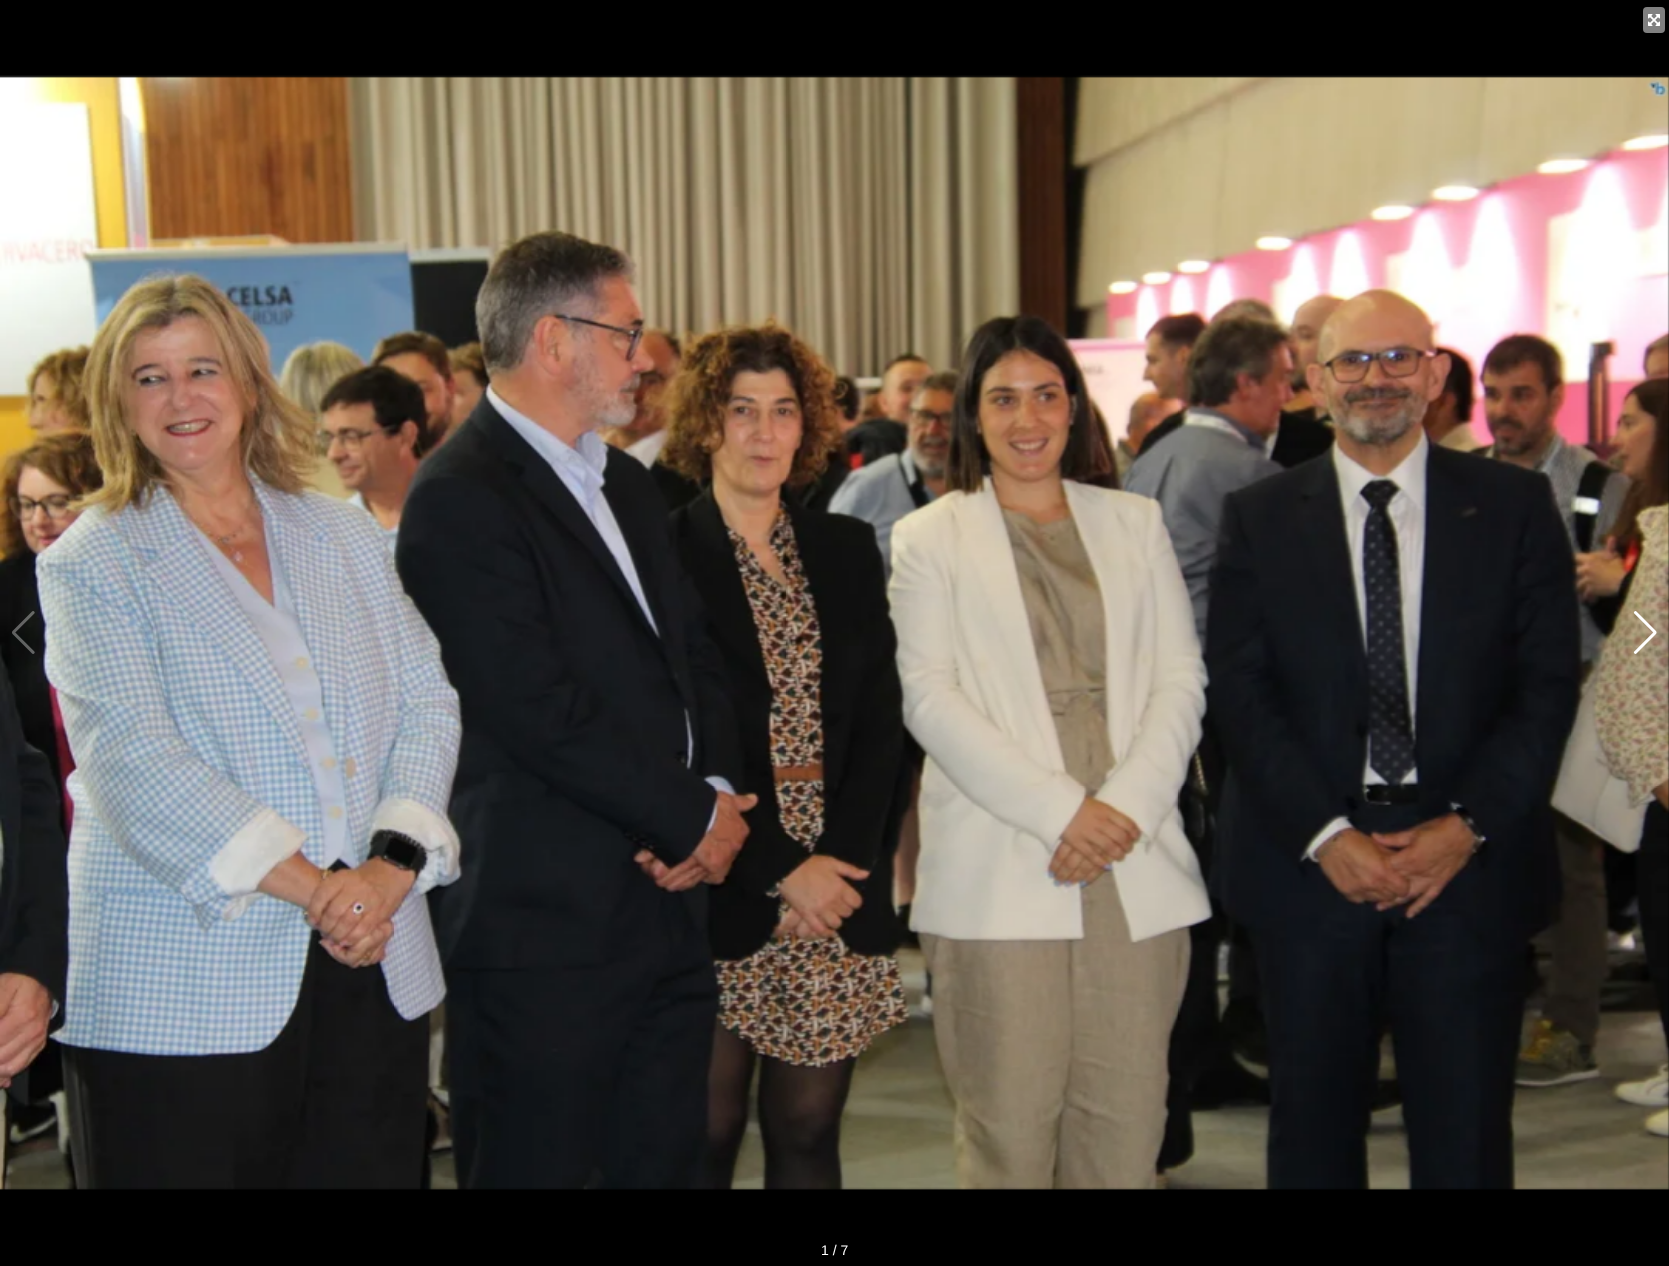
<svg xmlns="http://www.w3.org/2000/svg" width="1669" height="1266">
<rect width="100%" height="100%" fill="#000"/>
<rect x="1643" y="7" width="22" height="26" rx="4" fill="#808080"/>
<image x="1648" y="14" width="12" height="12" href="media/1.png"/>
<image x="0" y="75" width="1669" height="1115" href="media/2.png"/>
<image x="12" y="611" width="23" height="43" href="media/3.png"/>
<image x="1633" y="611" width="24" height="43" href="media/4.png"/>
<text x="821" y="1255" style="font-family:Liberation Sans;font-size:14px;fill:#fff">1 / 7</text>
</svg>
